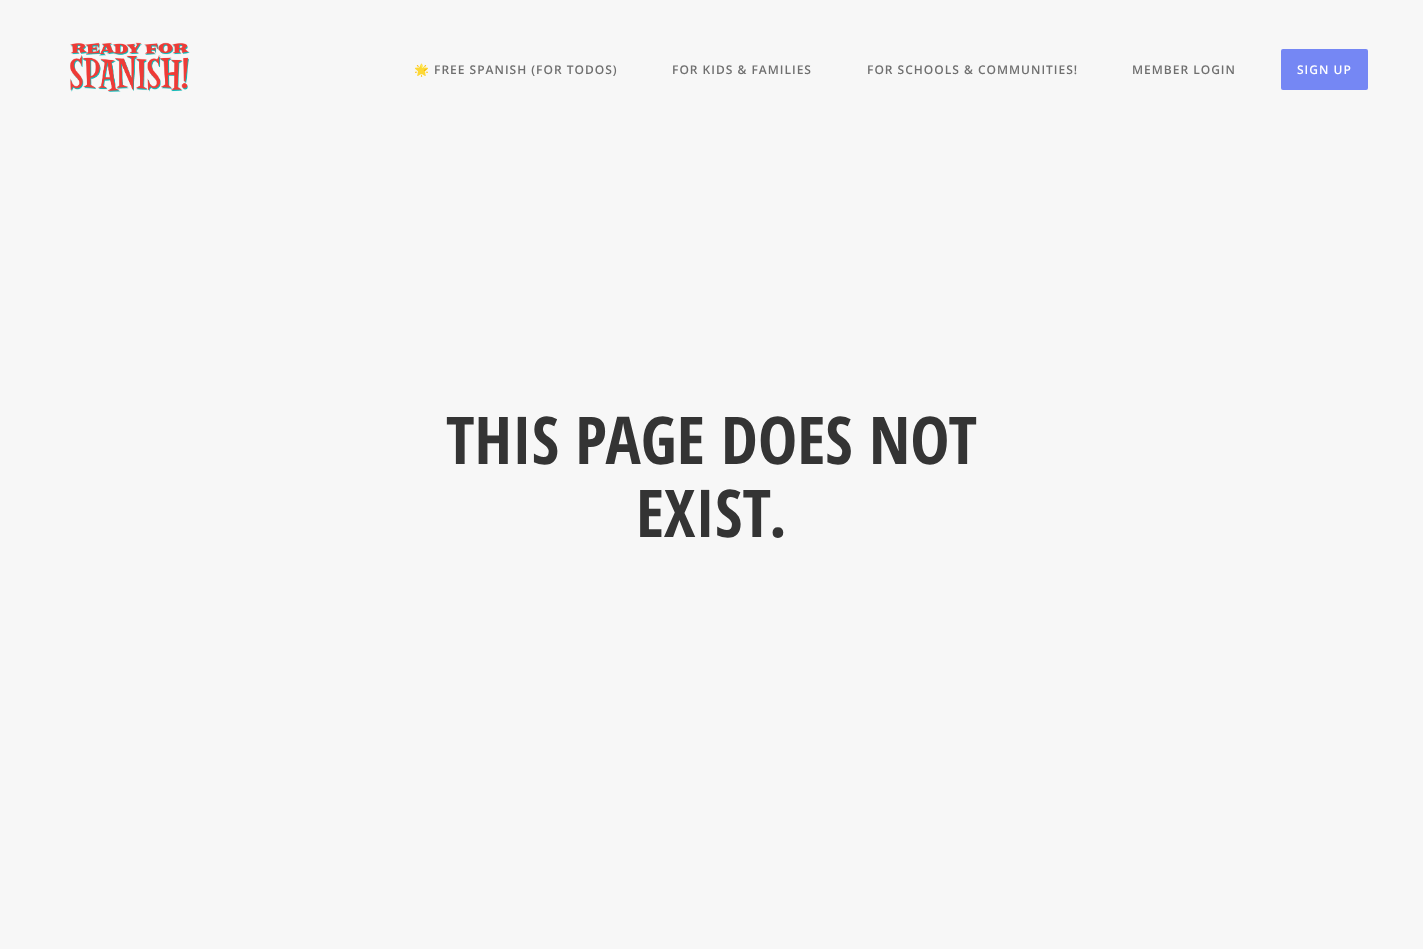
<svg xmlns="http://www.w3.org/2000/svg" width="1423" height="949">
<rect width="100%" height="100%" fill="#f7f7f7"/>
<image x="70" y="42" width="120" height="50" href="media/1.png"/>
<text x="414" y="74" style="font-family:Noto Color Emoji;font-size:12px;font-weight:bold;letter-spacing:1px;fill:#6f6f6f">🌟</text>
<text x="434" y="74" style="font-family:Open Sans;font-size:12px;font-weight:600;letter-spacing:1px;fill:#6f6f6f">FREE SPANISH (FOR TODOS)</text>
<text x="672" y="74" style="font-family:Open Sans;font-size:12px;font-weight:600;letter-spacing:1px;fill:#6f6f6f">FOR KIDS &amp; FAMILIES</text>
<text x="867" y="74" style="font-family:Open Sans;font-size:12px;font-weight:600;letter-spacing:1px;fill:#6f6f6f">FOR SCHOOLS &amp; COMMUNITIES!</text>
<text x="1132" y="74" style="font-family:Open Sans;font-size:12px;font-weight:600;letter-spacing:1px;fill:#6f6f6f">MEMBER LOGIN</text>
<rect x="1281" y="49" width="87" height="41" rx="2" fill="#7587f4"/>
<text x="1297" y="74" style="font-family:Open Sans;font-size:12px;font-weight:600;letter-spacing:1px;fill:#fff">SIGN UP</text>
<text x="446" y="464" style="font-family:Open Sans Condensed;font-size:66px;font-weight:bold;fill:#343434">THIS PAGE DOES NOT</text>
<text x="636" y="537" style="font-family:Open Sans Condensed;font-size:66px;font-weight:bold;fill:#343434">EXIST.</text>
</svg>
